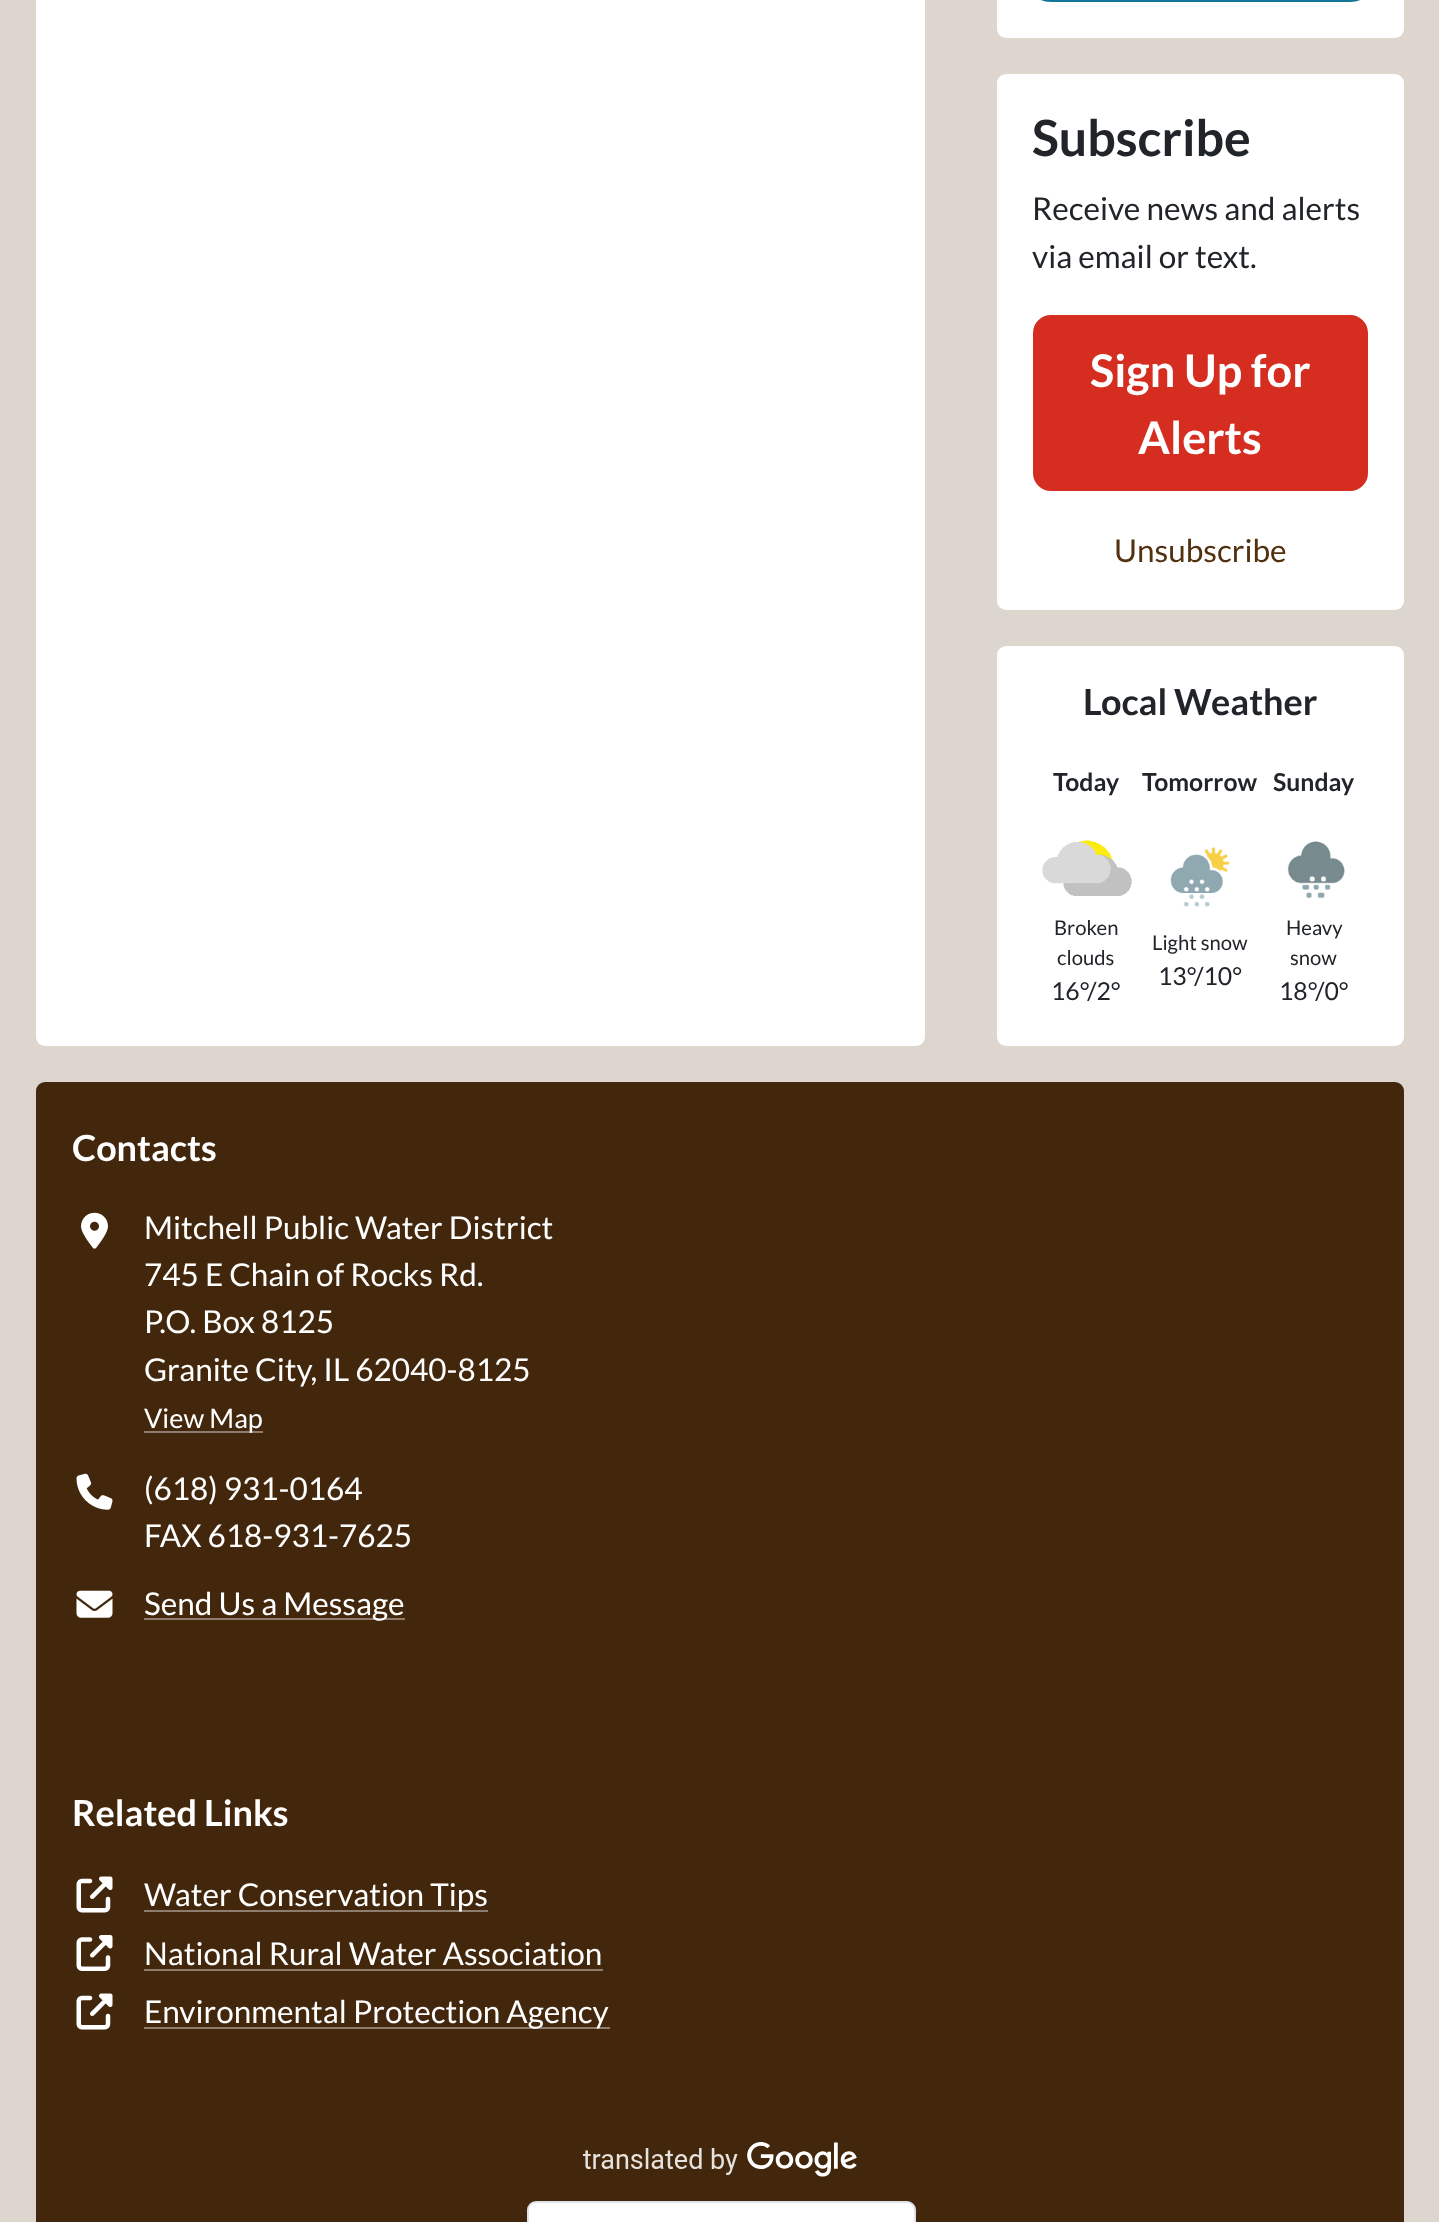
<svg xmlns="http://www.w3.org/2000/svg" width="1439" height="2222">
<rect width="100%" height="100%" fill="#dcd6cf"/>
<rect x="36" y="-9" width="889" height="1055" rx="9" fill="#fff"/>
<rect x="997" y="-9" width="407" height="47" rx="9" fill="#fff"/>
<rect x="1034" y="-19" width="333" height="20" rx="17" fill="none" stroke="#127696" stroke-width="2"/>
<rect x="997" y="74" width="407" height="536" rx="9" fill="#fff"/>
<text x="1032" y="156" style="font-family:Lato;font-size:50px;font-weight:bold;fill:#212529">Subscribe</text>
<text x="1032" y="220" style="font-family:Lato;font-size:31.5px;fill:#212529">Receive news and alerts</text>
<text x="1032" y="268" style="font-family:Lato;font-size:31.5px;fill:#212529">via email or text.</text>
<rect x="1034" y="316" width="333" height="174" rx="17" fill="#d52e20" stroke="#d52e20" stroke-width="2"/>
<text x="1090" y="387" style="font-family:Lato;font-size:45px;font-weight:bold;fill:#fff">Sign Up for</text>
<text x="1138" y="454" style="font-family:Lato;font-size:45px;font-weight:bold;fill:#fff">Alerts</text>
<text x="1114" y="562" style="font-family:Lato;font-size:31.5px;fill:#523110">Unsubscribe</text>
<rect x="997" y="646" width="407" height="400" rx="9" fill="#fff"/>
<text x="1083" y="715" style="font-family:Lato;font-size:36px;font-weight:bold;fill:#212529">Local Weather</text>
<text x="1053" y="791" style="font-family:Lato;font-size:24.75px;font-weight:bold;fill:#212529">Today</text>
<text x="1142" y="791" style="font-family:Lato;font-size:24.75px;font-weight:bold;fill:#212529">Tomorrow</text>
<text x="1273" y="791" style="font-family:Lato;font-size:24.75px;font-weight:bold;fill:#212529">Sunday</text>
<image x="1042" y="840" width="90" height="56" href="media/1.png"/>
<text x="1054" y="935" style="font-family:Lato;font-size:20.25px;fill:#212529">Broken</text>
<text x="1057" y="965" style="font-family:Lato;font-size:20.25px;fill:#212529">clouds</text>
<text x="1051" y="1000" style="font-family:Lato;font-size:24.75px;fill:#212529">16°/2°</text>
<image x="1170" y="847" width="60" height="60" href="media/2.png"/>
<text x="1152" y="950" style="font-family:Lato;font-size:20.25px;fill:#212529">Light snow</text>
<text x="1158" y="985" style="font-family:Lato;font-size:24.75px;fill:#212529">13°/10°</text>
<image x="1287" y="841" width="58" height="58" href="media/3.png"/>
<text x="1286" y="935" style="font-family:Lato;font-size:20.25px;fill:#212529">Heavy</text>
<text x="1290" y="965" style="font-family:Lato;font-size:20.25px;fill:#212529">snow</text>
<text x="1279" y="1000" style="font-family:Lato;font-size:24.75px;fill:#212529">18°/0°</text>
<rect x="36" y="1082" width="1368" height="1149" rx="9" fill="#42270d"/>
<text x="72" y="1161" style="font-family:Lato;font-size:36px;font-weight:bold;fill:#fff">Contacts</text>
<image x="81" y="1212" width="27" height="37" href="media/4.png"/>
<text x="144" y="1239" style="font-family:Lato;font-size:31.5px;fill:#fff">Mitchell Public Water District</text>
<text x="144" y="1286" style="font-family:Lato;font-size:31.5px;fill:#fff">745 E Chain of Rocks Rd.</text>
<text x="144" y="1333" style="font-family:Lato;font-size:31.5px;fill:#fff">P.O. Box 8125</text>
<text x="144" y="1381" style="font-family:Lato;font-size:31.5px;fill:#fff">Granite City, IL 62040-8125</text>
<rect x="144" y="1431" width="119" height="2" fill="#8e7d6e"/>
<text x="144" y="1428" style="font-family:Lato;font-size:27px;fill:#fff">View Map</text>
<image x="76" y="1473" width="37" height="37" href="media/5.png"/>
<text x="144" y="1500" style="font-family:Lato;font-size:31.5px;fill:#fff">(618) 931-0164</text>
<text x="144" y="1547" style="font-family:Lato;font-size:31.5px;fill:#fff">FAX 618-931-7625</text>
<image x="76" y="1590" width="37" height="28" href="media/6.png"/>
<rect x="144" y="1618" width="261" height="2" fill="#8e7d6e"/>
<text x="144" y="1615" style="font-family:Lato;font-size:31.5px;fill:#fff">Send Us a Message</text>
<text x="72" y="1826" style="font-family:Lato;font-size:36px;font-weight:bold;fill:#fff">Related Links</text>
<image x="76" y="1876" width="37" height="37" href="media/7.png"/>
<rect x="144" y="1910" width="344" height="2" fill="#8e7d6e"/>
<text x="144" y="1906" style="font-family:Lato;font-size:31.5px;fill:#fff">Water Conservation Tips</text>
<image x="76" y="1935" width="37" height="36" href="media/8.png"/>
<text x="144" y="1965" style="font-family:Lato;font-size:31.5px;fill:#fff">National Rural Water Association</text>
<rect x="144" y="1969" width="459" height="2" fill="#8e7d6e"/>
<image x="76" y="1993" width="37" height="37" href="media/7.png"/>
<rect x="144" y="2027" width="466" height="2" fill="#8e7d6e"/>
<text x="144" y="2023" style="font-family:Lato;font-size:31.5px;fill:#fff">Environmental Protection Agency</text>
<image x="583" y="2142" width="274" height="35" href="media/9.png"/>
<rect x="528" y="2202" width="387" height="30" rx="8" fill="#fff" stroke="#dee2e6" stroke-width="2"/>
</svg>
